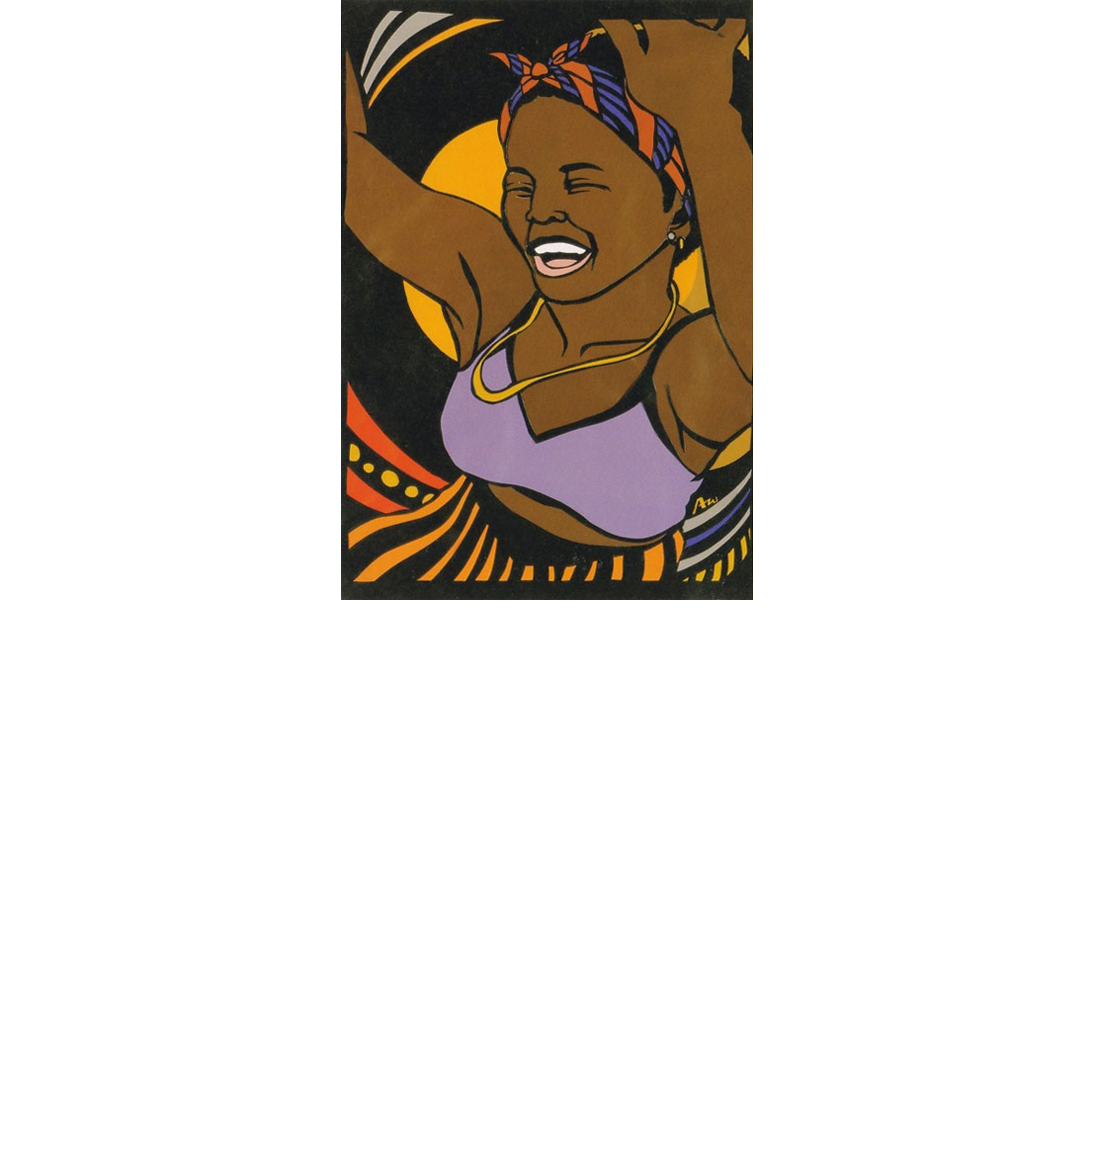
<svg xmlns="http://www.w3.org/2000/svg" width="1094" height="1169">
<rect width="100%" height="100%" fill="#fff"/>
<image x="341" y="0" width="412" height="600" href="media/1.png"/>
</svg>
